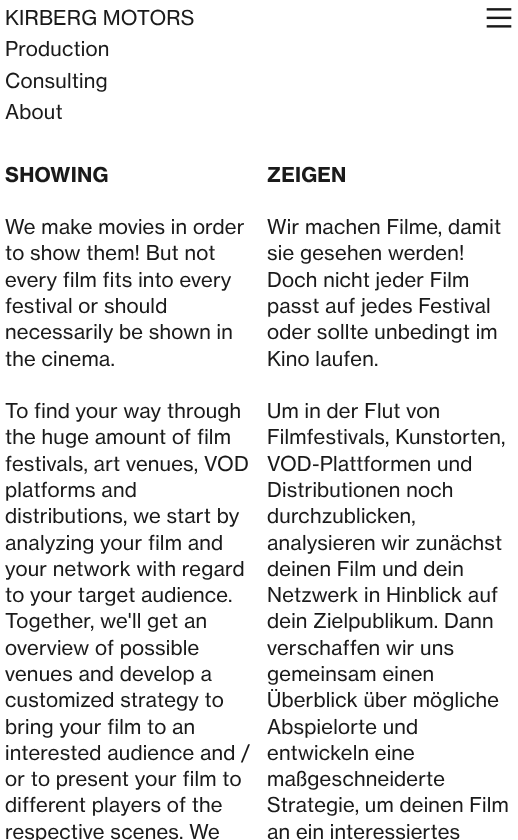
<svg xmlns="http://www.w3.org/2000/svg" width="518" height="840">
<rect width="100%" height="100%" fill="#fff"/>
<image x="486" y="8" width="26" height="20" href="media/1.png"/>
<text x="5" y="25" style="font-family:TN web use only;font-size:20.25px;letter-spacing:0.2px;fill:#1a1a1a">KIRBERG MOTORS</text>
<text x="5" y="56" style="font-family:TN web use only;font-size:20.25px;letter-spacing:0.2px;fill:#1a1a1a">Production</text>
<text x="5" y="88" style="font-family:TN web use only;font-size:20.25px;letter-spacing:0.2px;fill:#1a1a1a">Consulting</text>
<text x="5" y="119" style="font-family:TN web use only;font-size:20.25px;letter-spacing:0.2px;fill:#1a1a1a">About</text>
<text x="5" y="182" style="font-family:TN web use only;font-size:20.25px;font-weight:bold;letter-spacing:0.2px;fill:#1a1a1a">SHOWING</text>
<text x="5" y="234" style="font-family:TN web use only;font-size:20.25px;letter-spacing:0.2px;fill:#1a1a1a">We make movies in order</text>
<text x="5" y="260" style="font-family:TN web use only;font-size:20.25px;letter-spacing:0.2px;fill:#1a1a1a">to show them! But not</text>
<text x="5" y="287" style="font-family:TN web use only;font-size:20.25px;letter-spacing:0.2px;fill:#1a1a1a">every film fits into every</text>
<text x="5" y="313" style="font-family:TN web use only;font-size:20.25px;letter-spacing:0.2px;fill:#1a1a1a">festival or should</text>
<text x="5" y="339" style="font-family:TN web use only;font-size:20.25px;letter-spacing:0.2px;fill:#1a1a1a">necessarily be shown in</text>
<text x="5" y="366" style="font-family:TN web use only;font-size:20.25px;letter-spacing:0.2px;fill:#1a1a1a">the cinema.</text>
<text x="5" y="418" style="font-family:TN web use only;font-size:20.25px;letter-spacing:0.2px;fill:#1a1a1a">To find your way through</text>
<text x="5" y="444" style="font-family:TN web use only;font-size:20.25px;letter-spacing:0.2px;fill:#1a1a1a">the huge amount of film</text>
<text x="5" y="471" style="font-family:TN web use only;font-size:20.25px;letter-spacing:0.2px;fill:#1a1a1a">festivals, art venues, VOD</text>
<text x="5" y="497" style="font-family:TN web use only;font-size:20.25px;letter-spacing:0.2px;fill:#1a1a1a">platforms and</text>
<text x="5" y="523" style="font-family:TN web use only;font-size:20.25px;letter-spacing:0.2px;fill:#1a1a1a">distributions, we start by</text>
<text x="5" y="550" style="font-family:TN web use only;font-size:20.25px;letter-spacing:0.2px;fill:#1a1a1a">analyzing your film and</text>
<text x="5" y="576" style="font-family:TN web use only;font-size:20.25px;letter-spacing:0.2px;fill:#1a1a1a">your network with regard</text>
<text x="5" y="602" style="font-family:TN web use only;font-size:20.25px;letter-spacing:0.2px;fill:#1a1a1a">to your target audience.</text>
<text x="5" y="628" style="font-family:TN web use only;font-size:20.25px;letter-spacing:0.2px;fill:#1a1a1a">Together, we'll get an</text>
<text x="5" y="655" style="font-family:TN web use only;font-size:20.25px;letter-spacing:0.2px;fill:#1a1a1a">overview of possible</text>
<text x="5" y="681" style="font-family:TN web use only;font-size:20.25px;letter-spacing:0.2px;fill:#1a1a1a">venues and develop a</text>
<text x="5" y="707" style="font-family:TN web use only;font-size:20.25px;letter-spacing:0.2px;fill:#1a1a1a">customized strategy to</text>
<text x="5" y="734" style="font-family:TN web use only;font-size:20.25px;letter-spacing:0.2px;fill:#1a1a1a">bring your film to an</text>
<text x="5" y="760" style="font-family:TN web use only;font-size:20.25px;letter-spacing:0.2px;fill:#1a1a1a">interested audience and /</text>
<text x="5" y="786" style="font-family:TN web use only;font-size:20.25px;letter-spacing:0.2px;fill:#1a1a1a">or to present your film to</text>
<text x="5" y="812" style="font-family:TN web use only;font-size:20.25px;letter-spacing:0.2px;fill:#1a1a1a">different players of the</text>
<text x="5" y="839" style="font-family:TN web use only;font-size:20.25px;letter-spacing:0.2px;fill:#1a1a1a">respective scenes. We</text>
<text x="267" y="182" style="font-family:TN web use only;font-size:20.25px;font-weight:bold;letter-spacing:0.2px;fill:#1a1a1a">ZEIGEN</text>
<text x="267" y="234" style="font-family:TN web use only;font-size:20.25px;letter-spacing:0.2px;fill:#1a1a1a">Wir machen Filme, damit</text>
<text x="267" y="260" style="font-family:TN web use only;font-size:20.25px;letter-spacing:0.2px;fill:#1a1a1a">sie gesehen werden!</text>
<text x="267" y="287" style="font-family:TN web use only;font-size:20.25px;letter-spacing:0.2px;fill:#1a1a1a">Doch nicht jeder Film</text>
<text x="267" y="313" style="font-family:TN web use only;font-size:20.25px;letter-spacing:0.2px;fill:#1a1a1a">passt auf jedes Festival</text>
<text x="267" y="339" style="font-family:TN web use only;font-size:20.25px;letter-spacing:0.2px;fill:#1a1a1a">oder sollte unbedingt im</text>
<text x="267" y="366" style="font-family:TN web use only;font-size:20.25px;letter-spacing:0.2px;fill:#1a1a1a">Kino laufen.</text>
<text x="267" y="418" style="font-family:TN web use only;font-size:20.25px;letter-spacing:0.2px;fill:#1a1a1a">Um in der Flut von</text>
<text x="267" y="444" style="font-family:TN web use only;font-size:20.25px;letter-spacing:0.2px;fill:#1a1a1a">Filmfestivals, Kunstorten,</text>
<text x="267" y="471" style="font-family:TN web use only;font-size:20.25px;letter-spacing:0.2px;fill:#1a1a1a">VOD-Plattformen und</text>
<text x="267" y="497" style="font-family:TN web use only;font-size:20.25px;letter-spacing:0.2px;fill:#1a1a1a">Distributionen noch</text>
<text x="267" y="523" style="font-family:TN web use only;font-size:20.25px;letter-spacing:0.2px;fill:#1a1a1a">durchzublicken,</text>
<text x="267" y="550" style="font-family:TN web use only;font-size:20.25px;letter-spacing:0.2px;fill:#1a1a1a">analysieren wir zunächst</text>
<text x="267" y="576" style="font-family:TN web use only;font-size:20.25px;letter-spacing:0.2px;fill:#1a1a1a">deinen Film und dein</text>
<text x="267" y="602" style="font-family:TN web use only;font-size:20.25px;letter-spacing:0.2px;fill:#1a1a1a">Netzwerk in Hinblick auf</text>
<text x="267" y="628" style="font-family:TN web use only;font-size:20.25px;letter-spacing:0.2px;fill:#1a1a1a">dein Zielpublikum. Dann</text>
<text x="267" y="655" style="font-family:TN web use only;font-size:20.25px;letter-spacing:0.2px;fill:#1a1a1a">verschaffen wir uns</text>
<text x="267" y="681" style="font-family:TN web use only;font-size:20.25px;letter-spacing:0.2px;fill:#1a1a1a">gemeinsam einen</text>
<text x="267" y="707" style="font-family:TN web use only;font-size:20.25px;letter-spacing:0.2px;fill:#1a1a1a">Überblick über mögliche</text>
<text x="267" y="734" style="font-family:TN web use only;font-size:20.25px;letter-spacing:0.2px;fill:#1a1a1a">Abspielorte und</text>
<text x="267" y="760" style="font-family:TN web use only;font-size:20.25px;letter-spacing:0.2px;fill:#1a1a1a">entwickeln eine</text>
<text x="267" y="786" style="font-family:TN web use only;font-size:20.25px;letter-spacing:0.2px;fill:#1a1a1a">maßgeschneiderte</text>
<text x="267" y="812" style="font-family:TN web use only;font-size:20.25px;letter-spacing:0.2px;fill:#1a1a1a">Strategie, um deinen Film</text>
<text x="267" y="839" style="font-family:TN web use only;font-size:20.25px;letter-spacing:0.2px;fill:#1a1a1a">an ein interessiertes</text>
</svg>
